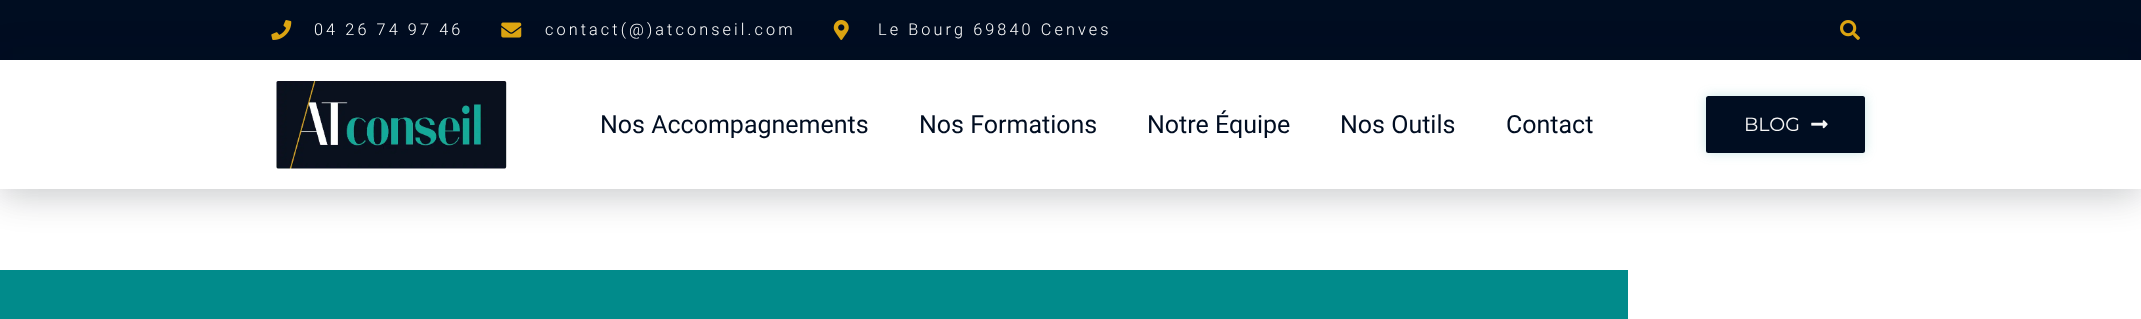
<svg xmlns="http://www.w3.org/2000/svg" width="2141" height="319">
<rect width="100%" height="100%" fill="#fff"/>
<rect y="6" width="2141" height="189" fill="#0707071f" filter="blur(19px)"/>
<rect width="2141" height="60" fill="#000d21"/>
<image x="271" y="20" width="21" height="20" href="media/1.png"/>
<text x="314" y="35" style="font-family:Roboto;font-size:16.25px;font-weight:300;letter-spacing:3.1px;fill:#fff">04 26 74 97 46</text>
<image x="501" y="22" width="21" height="16" href="media/2.png"/>
<text x="545" y="35" style="font-family:Roboto;font-size:16.25px;font-weight:300;letter-spacing:3.1px;fill:#fff">contact(@)atconseil.com</text>
<image x="833" y="20" width="16" height="20" href="media/3.png"/>
<text x="878" y="35" style="font-family:Roboto;font-size:16.25px;font-weight:300;letter-spacing:3.1px;fill:#fff">Le Bourg 69840 Cenves</text>
<image x="1840" y="20" width="20" height="20" href="media/4.png"/>
<rect y="60" width="2141" height="129" fill="#000d2126" filter="blur(19px)"/>
<rect y="60" width="2141" height="129" fill="#fff"/>
<image x="276" y="81" width="231" height="88" href="media/5.png"/>
<text x="600" y="133" style="font-family:Roboto;font-size:25px;fill:#000d21">Nos Accompagnements</text>
<text x="919" y="133" style="font-family:Roboto;font-size:25px;fill:#000d21">Nos Formations</text>
<text x="1147" y="133" style="font-family:Roboto;font-size:25px;fill:#000d21">Notre Équipe</text>
<text x="1340" y="133" style="font-family:Roboto;font-size:25px;fill:#000d21">Nos Outils</text>
<text x="1506" y="133" style="font-family:Roboto;font-size:25px;fill:#000d21">Contact</text>
<rect x="1706" y="96" width="159" height="57" rx="2.5" fill="#018b8b36" filter="blur(6px)"/>
<rect x="1706" y="96" width="159" height="57" rx="2.5" fill="#000d21"/>
<text x="1744" y="131" style="font-family:Montserrat;font-size:19px;fill:#f7f7f7">BLOG</text>
<image x="1811" y="120" width="17" height="9" href="media/6.png"/>
<rect y="270" width="1628" height="49" fill="#018b8b"/>
</svg>
